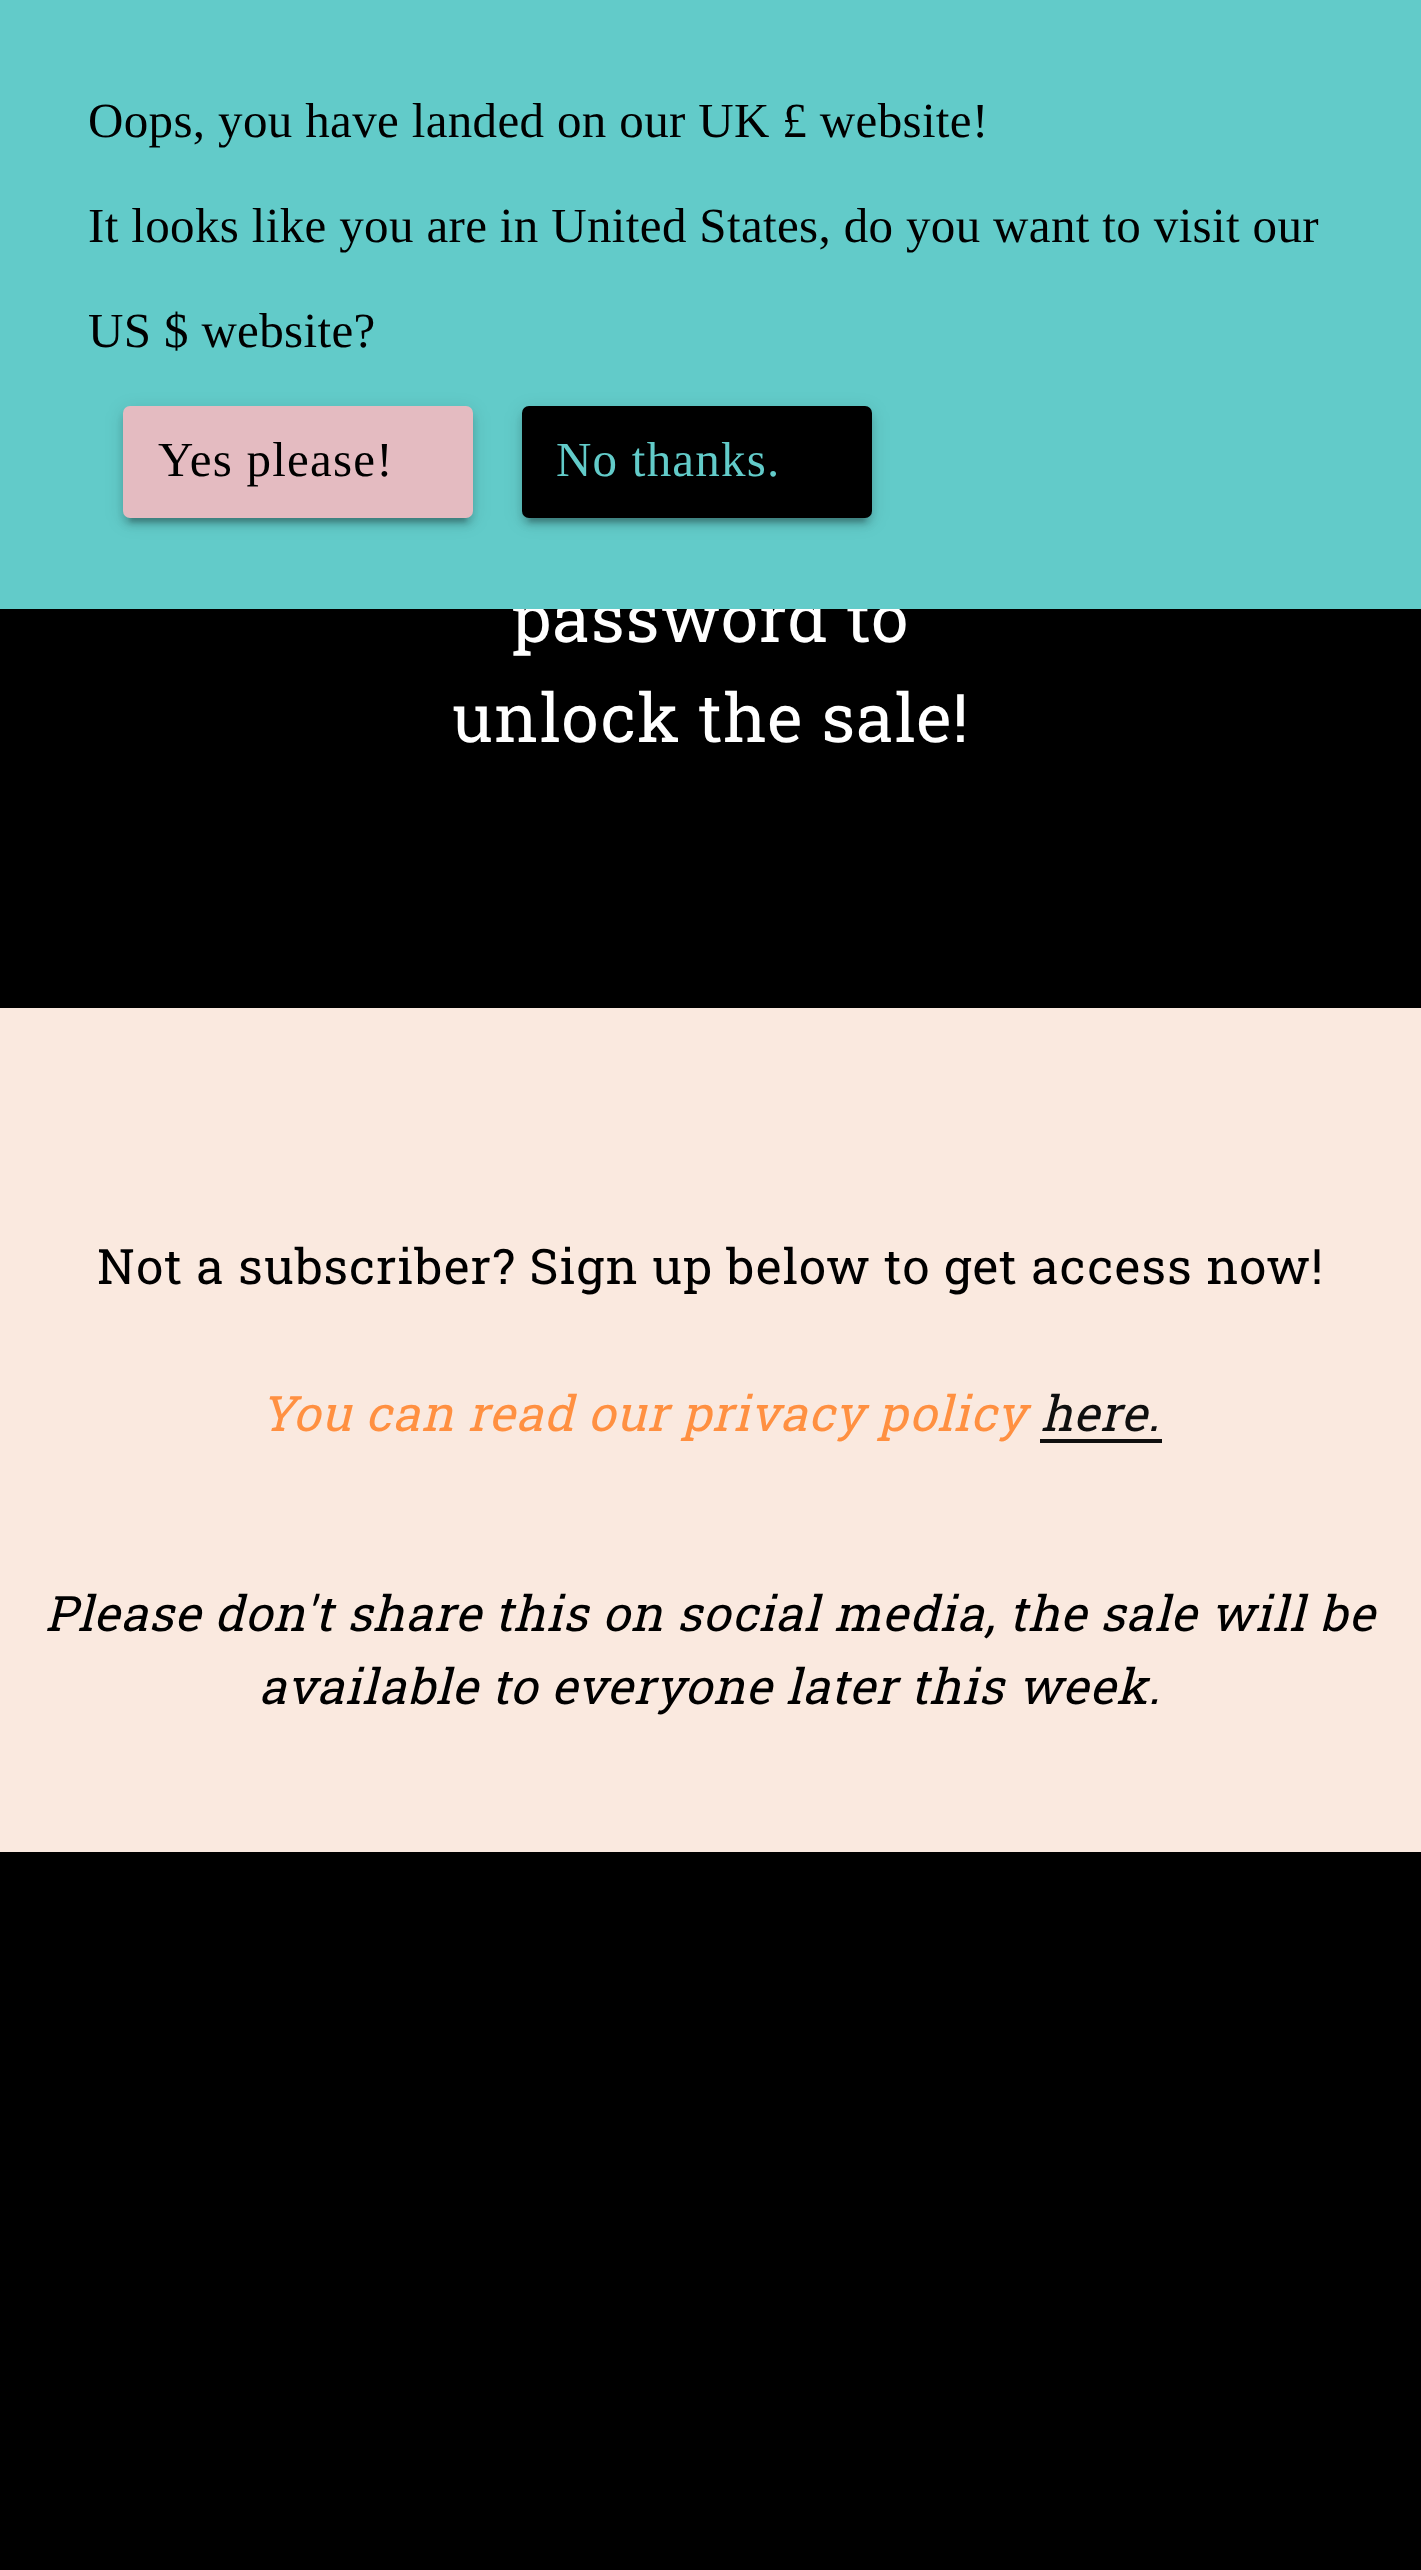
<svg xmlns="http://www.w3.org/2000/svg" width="1421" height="2570">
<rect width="100%" height="100%" fill="#000"/>
<rect x="-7" y="-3" width="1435" height="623" fill="#00000026" filter="blur(5px)"/>
<text x="512" y="642" style="font-family:Roboto Slab;font-size:67.25px;letter-spacing:1.22px;fill:#fff">password to</text>
<rect width="1421" height="609" fill="#62cbc9"/>
<text x="88" y="137" style="font-family:Liberation Serif;font-size:49px;letter-spacing:0.35px;fill:#000">Oops, you have landed on our UK £ website!</text>
<text x="88" y="242" style="font-family:Liberation Serif;font-size:49px;letter-spacing:0.35px;fill:#000">It looks like you are in United States, do you want to visit our</text>
<text x="88" y="347" style="font-family:Liberation Serif;font-size:49px;letter-spacing:0.35px;fill:#000">US $ website?</text>
<rect x="123" y="410" width="350" height="112" rx="7" fill="#0000001f" filter="blur(9px)"/>
<rect x="130" y="424" width="336" height="98" fill="#00000033" filter="blur(2px)"/>
<rect x="123" y="413" width="350" height="112" rx="7" fill="#00000024" filter="blur(3.5px)"/>
<rect x="123" y="406" width="350" height="112" rx="7" fill="#e4bbc1"/>
<text x="158" y="476" style="font-family:Liberation Serif;font-size:49px;letter-spacing:1.22px;fill:#000">Yes please!</text>
<rect x="522" y="410" width="350" height="112" rx="7" fill="#0000001f" filter="blur(9px)"/>
<rect x="529" y="424" width="336" height="98" fill="#00000033" filter="blur(2px)"/>
<rect x="522" y="413" width="350" height="112" rx="7" fill="#00000024" filter="blur(3.5px)"/>
<rect x="522" y="406" width="350" height="112" rx="7" fill="#000"/>
<text x="556" y="476" style="font-family:Liberation Serif;font-size:49px;letter-spacing:1.22px;fill:#62cbc9">No thanks.</text>
<text x="452" y="742" style="font-family:Roboto Slab;font-size:67.25px;letter-spacing:1.22px;fill:#fff">unlock the sale!</text>
<rect y="1008" width="1421" height="844" fill="#fae9df"/>
<text x="97" y="1284" style="font-family:Roboto Slab;font-size:49px;letter-spacing:1.22px;fill:#000">Not a subscriber? Sign up below to get access now!</text>
<text x="260" y="1431" style="font-family:Roboto Slab;font-size:49px;font-style:italic;letter-spacing:1.22px;fill:#ff9041">You can read our privacy policy</text>
<rect x="1040" y="1439" width="122" height="4" fill="#0f0f0f"/>
<text x="1041" y="1431" style="font-family:Roboto Slab;font-size:49px;font-style:italic;letter-spacing:1.22px;fill:#0f0f0f">here.</text>
<text x="45" y="1631" style="font-family:Roboto Slab;font-size:49px;font-style:italic;letter-spacing:1.22px;fill:#000">Please don't share this on social media, the sale will be</text>
<text x="259" y="1704" style="font-family:Roboto Slab;font-size:49px;font-style:italic;letter-spacing:1.22px;fill:#000">available to everyone later this week.</text>
</svg>
